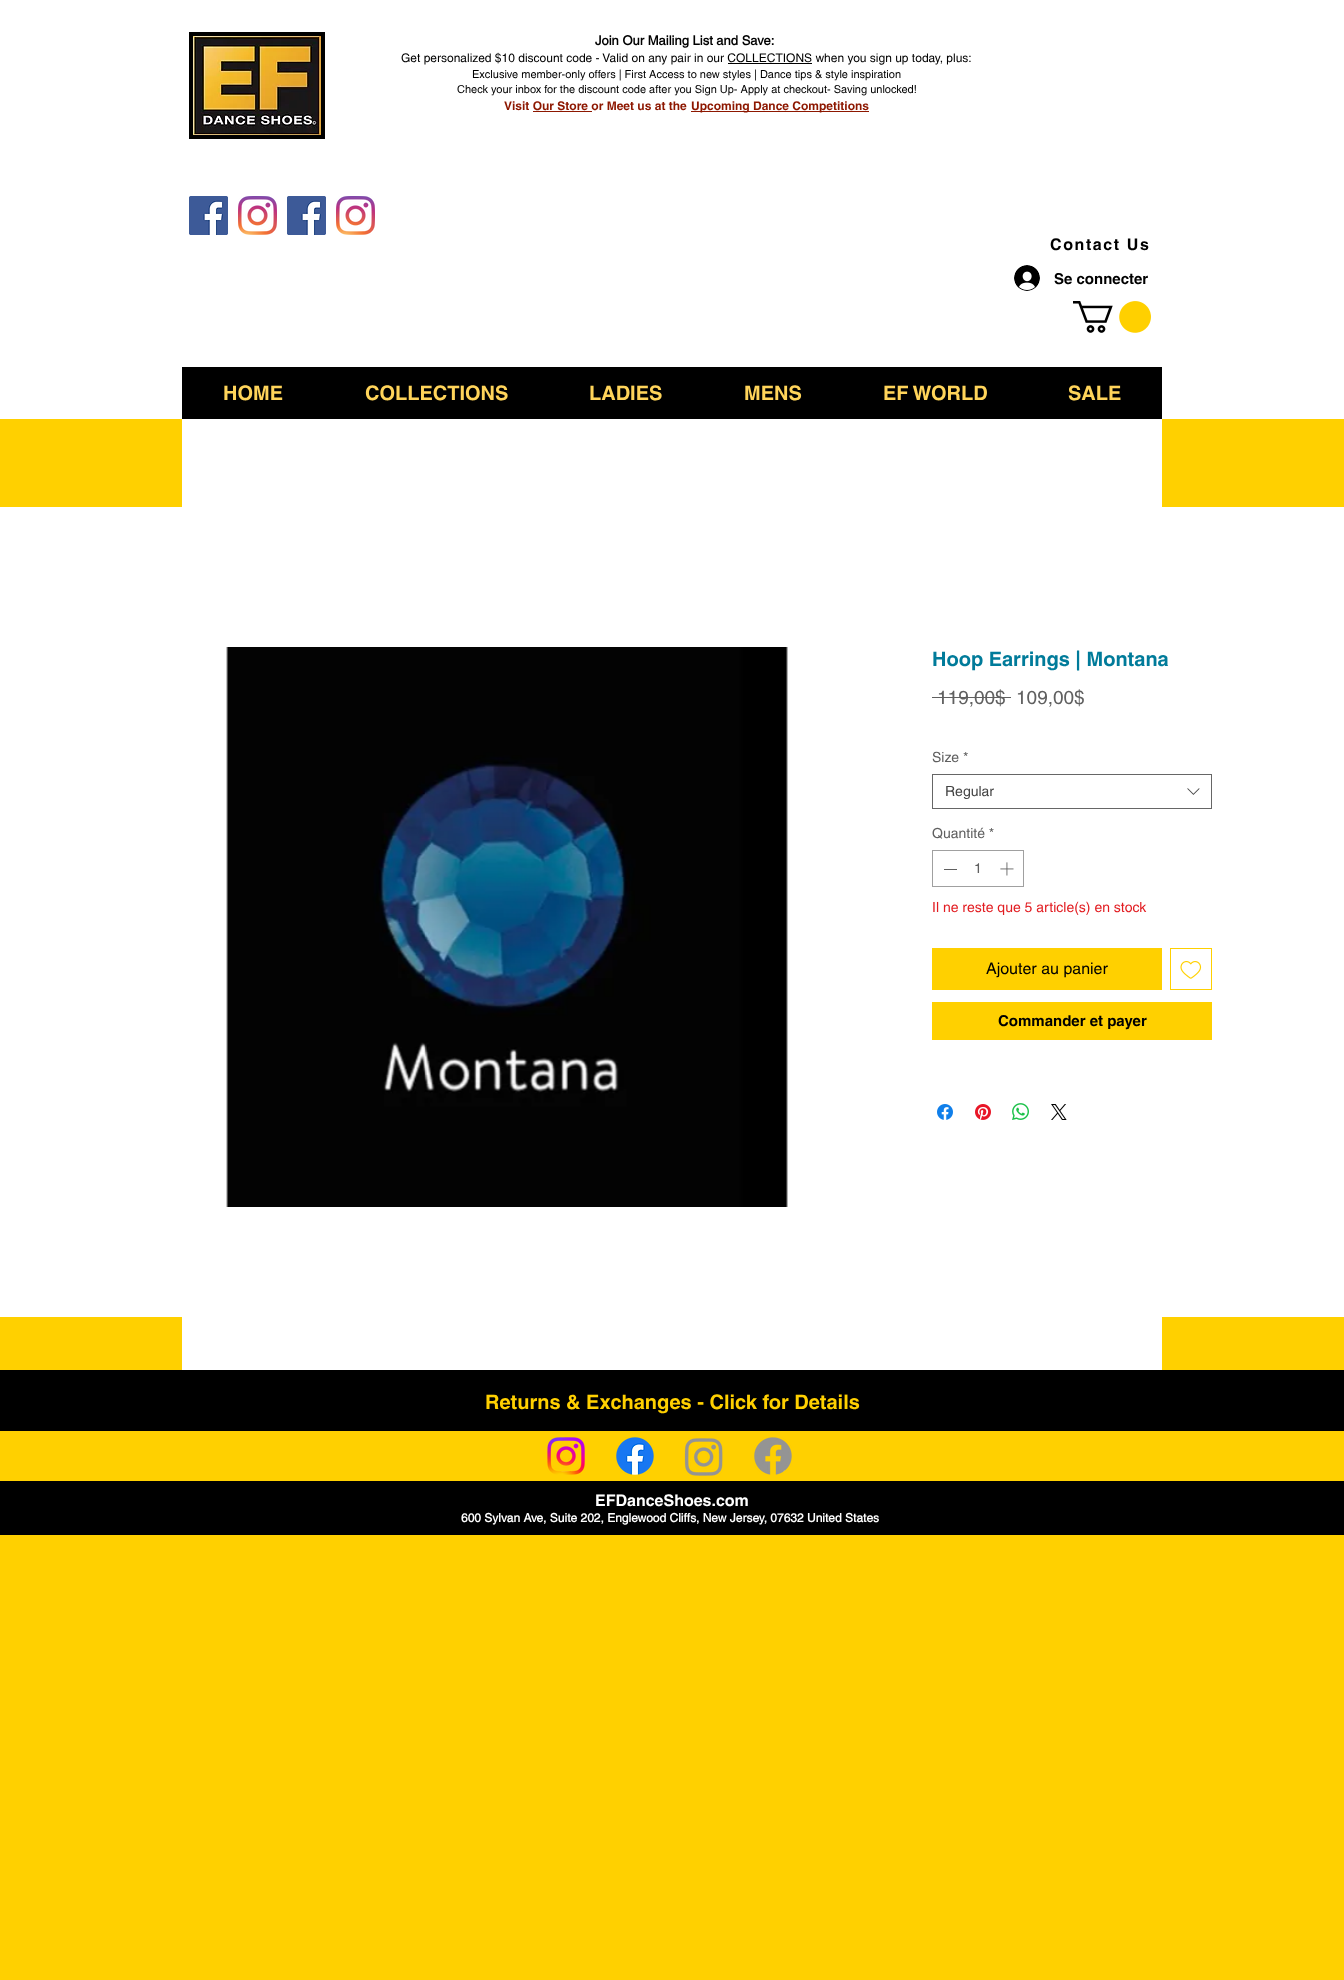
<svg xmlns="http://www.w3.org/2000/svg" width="1344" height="1980">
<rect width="100%" height="100%" fill="#ffd000"/>
<rect width="1344" height="419" fill="#fff"/>
<rect x="189" y="32" width="136" height="107" fill="#000"/>
<image x="193" y="36" width="128" height="99" href="media/1.png"/>
<text x="595" y="45" style="font-family:helvetica;font-size:13px;font-weight:bold;fill:#000">Join Our Mailing List and Save:</text>
<text x="401" y="62" style="font-family:helvetica;font-size:12px;fill:#000">Get personalized $10 discount code - Valid on any pair in our COLLECTIONS when you sign up today, plus:</text>
<rect x="728" y="63" width="84" height="1" fill="#000"/>
<text x="472" y="78" style="font-family:helvetica;font-size:11px;fill:#000">Exclusive member-only offers | First Access to new styles | Dance tips &amp; style inspiration</text>
<text x="457" y="93" style="font-family:helvetica;font-size:11px;fill:#000">Check your inbox for the discount code after you Sign Up- Apply at checkout- Saving unlocked!</text>
<text x="504" y="110" style="font-family:'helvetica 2';font-size:12px;font-weight:bold;fill:#8d1700">Visit Our Store or Meet us at the</text>
<rect x="533" y="111" width="59" height="1" fill="#8d1700"/>
<rect x="691" y="111" width="178" height="1" fill="#8d1700"/>
<text x="691" y="110" style="font-family:'helvetica 2';font-size:12px;font-weight:bold;fill:#8d1700">Upcoming Dance Competitions</text>
<image x="189" y="196" width="39" height="39" href="media/2.png"/>
<image x="238" y="196" width="39" height="39" href="media/3.png"/>
<image x="287" y="196" width="39" height="39" href="media/2.png"/>
<image x="336" y="196" width="39" height="39" href="media/3.png"/>
<text x="1050" y="250" style="font-family:'helvetica 2';font-size:16px;font-weight:bold;letter-spacing:1.6px;fill:#000">Contact Us</text>
<image x="1014" y="265" width="26" height="26" href="media/4.png"/>
<text x="1054" y="284" style="font-family:'helvetica 2';font-size:15px;font-weight:bold;fill:#000">Se connecter</text>
<image x="1073" y="301" width="78" height="32" href="media/5.png"/>
<rect x="182" y="367" width="980" height="52" fill="#000"/>
<text x="223" y="400" style="font-family:'helvetica 2';font-size:20px;font-weight:bold;fill:#ffd45a">HOME</text>
<text x="365" y="400" style="font-family:'helvetica 2';font-size:20px;font-weight:bold;fill:#ffd45a">COLLECTIONS</text>
<text x="589" y="400" style="font-family:'helvetica 2';font-size:20px;font-weight:bold;fill:#ffd45a">LADIES</text>
<text x="744" y="400" style="font-family:'helvetica 2';font-size:20px;font-weight:bold;fill:#ffd45a">MENS</text>
<text x="883" y="400" style="font-family:'helvetica 2';font-size:20px;font-weight:bold;fill:#ffd45a">EF WORLD</text>
<text x="1068" y="400" style="font-family:'helvetica 2';font-size:20px;font-weight:bold;fill:#ffd45a">SALE</text>
<rect x="182" y="419" width="980" height="951" fill="#fff"/>
<rect y="507" width="1344" height="810" fill="#fff"/>
<image x="226" y="647" width="562" height="560" href="media/6.png"/>
<text x="932" y="666" style="font-family:'helvetica 2';font-size:20px;font-weight:bold;fill:#007b9a">Hoop Earrings | Montana</text>
<text x="937" y="704" style="font-family:helvetica;font-size:19px;fill:#606060">119,00$</text>
<rect x="932" y="697" width="79" height="1" fill="#606060"/>
<text x="1016" y="704" style="font-family:helvetica;font-size:19px;fill:#606060">109,00$</text>
<text x="932" y="762" style="font-family:helvetica;font-size:14px;fill:#606060">Size *</text>
<rect x="932.5" y="774.5" width="279" height="34" fill="none" stroke="#666"/>
<text x="945" y="796" style="font-family:helvetica;font-size:14px;fill:#444">Regular</text>
<image x="1187" y="788" width="13" height="7" href="media/7.png"/>
<text x="932" y="838" style="font-family:helvetica;font-size:14px;fill:#606060">Quantité *</text>
<rect x="932.5" y="850.5" width="91" height="36" fill="none" stroke="#a0a0a0"/>
<rect x="944" y="869" width="13" height="1" fill="#606060"/>
<text x="974" y="873" style="font-family:helvetica;font-size:14px;fill:#606060">1</text>
<image x="1000" y="862" width="14" height="14" href="media/8.png"/>
<text x="932" y="912" style="font-family:helvetica;font-size:14px;fill:#e21c21">Il ne reste que 5 article(s) en stock</text>
<rect x="932" y="948" width="230" height="42" fill="#ffd000"/>
<text x="986" y="974" style="font-family:helvetica;font-size:16px;fill:#000">Ajouter au panier</text>
<rect x="1170.5" y="948.5" width="41" height="41" fill="none" stroke="#ffd000"/>
<image x="1180" y="961" width="22" height="18" href="media/9.png"/>
<rect x="932" y="1002" width="280" height="38" fill="#ffd000"/>
<text x="998" y="1026" style="font-family:'helvetica 2';font-size:15px;font-weight:bold;fill:#000">Commander et payer</text>
<image x="937" y="1104" width="16" height="16" href="media/10.png"/>
<image x="975" y="1104" width="16" height="16" href="media/11.png"/>
<image x="1012" y="1103" width="17" height="17" href="media/12.png"/>
<image x="1051" y="1104" width="16" height="16" href="media/13.png"/>
<rect y="1370" width="1344" height="165" fill="#000"/>
<text x="485" y="1409" style="font-family:'helvetica 2';font-size:20px;font-weight:bold;fill:#ffd000">Returns &amp; Exchanges - Click for Details</text>
<rect y="1431" width="1344" height="50" fill="#ffd000"/>
<image x="547" y="1437" width="38" height="38" href="media/14.png"/>
<image x="616" y="1437" width="38" height="38" href="media/15.png"/>
<image x="684" y="1438" width="39" height="38" href="media/16.png"/>
<image x="754" y="1437" width="38" height="38" href="media/17.png"/>
<text x="595" y="1506" style="font-family:'helvetica 2';font-size:16px;font-weight:bold;fill:#fff">EFDanceShoes.com</text>
<text x="461" y="1522" style="font-family:helvetica;font-size:12px;font-weight:bold;fill:#fff">600 Sylvan Ave, Suite 202, Englewood Cliffs, New Jersey, 07632 United States</text>
</svg>
